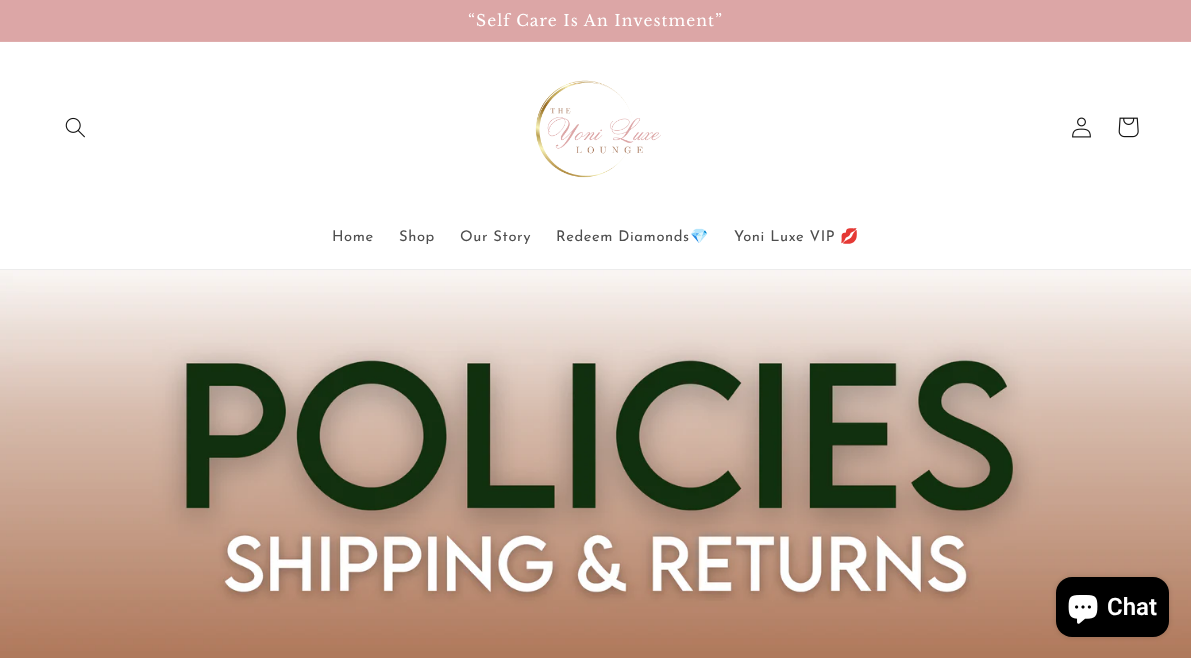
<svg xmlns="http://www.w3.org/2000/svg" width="1191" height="658">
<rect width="100%" height="100%" fill="#fff"/>
<rect width="1191" height="41" fill="#dca6a6"/>
<rect y="41" width="1191" height="1" fill="#dfadad"/>
<text x="468" y="26" style="font-family:Libre Baskerville;font-size:15.6px;letter-spacing:1.05px;fill:#fff">“Self Care Is An Investment”</text>
<rect y="269" width="1191" height="1" fill="#ececec"/>
<image x="65" y="117" width="20" height="21" href="media/1.png"/>
<image x="535" y="80" width="126" height="98" href="media/2.png"/>
<image x="1072" y="117" width="19" height="21" href="media/3.png"/>
<image x="1118" y="117" width="21" height="21" href="media/4.png"/>
<text x="332" y="241" style="font-family:Josefin Sans;font-size:14.75px;letter-spacing:0.6px;fill:#4d4d4d">Home</text>
<text x="399" y="241" style="font-family:Josefin Sans;font-size:14.75px;letter-spacing:0.6px;fill:#4d4d4d">Shop</text>
<text x="460" y="241" style="font-family:Josefin Sans;font-size:14.75px;letter-spacing:0.6px;fill:#4d4d4d">Our Story</text>
<text x="556" y="241" style="font-family:Josefin Sans;font-size:14.75px;letter-spacing:0.6px;fill:#4d4d4d">Redeem Diamonds</text>
<text x="690" y="241" style="font-family:Noto Color Emoji;font-size:14.75px;letter-spacing:0.6px;fill:#4d4d4d">💎</text>
<text x="734" y="241" style="font-family:Josefin Sans;font-size:14.75px;letter-spacing:0.6px;fill:#4d4d4d">Yoni Luxe VIP</text>
<text x="840" y="241" style="font-family:Noto Color Emoji;font-size:14.75px;letter-spacing:0.6px;fill:#4d4d4d">💋</text>
<image x="0" y="270" width="1191" height="388" href="media/5.png"/>
<rect x="1056" y="577" width="113" height="60" rx="16" fill="#00000026" filter="blur(2.5px)"/>
<rect x="1056" y="577" width="113" height="60" rx="16" fill="#000"/>
<image x="1068" y="595" width="30" height="29" href="media/6.png"/>
<text x="1107" y="615" style="font-family:Roboto;font-size:24px;font-weight:600;fill:#fff">Chat</text>
</svg>
